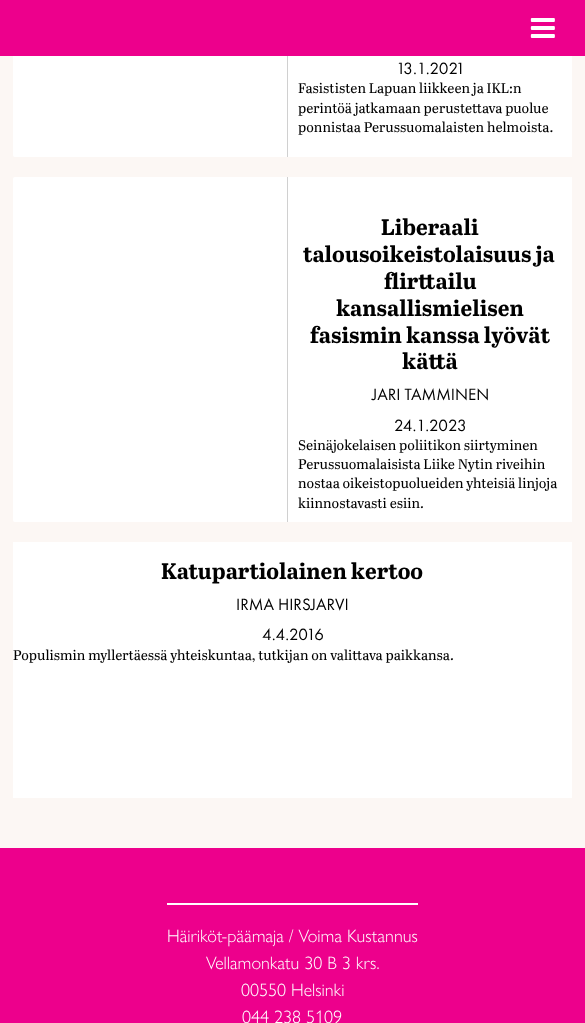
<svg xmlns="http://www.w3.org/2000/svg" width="585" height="1023">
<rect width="100%" height="100%" fill="#fcf7f4"/>
<rect x="13" y="-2" width="559" height="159" rx="2" fill="#fff"/>
<rect width="585" height="56" fill="#ed008c"/>
<image x="530" y="18" width="25" height="20" href="media/1.png"/>
<rect x="571" y="156" width="1" height="1" fill="#fff"/>
<rect x="287" y="56" width="1" height="101" fill="#d0d0d0"/>
<text x="396" y="74" style="font-family:Futura PT;font-size:17px;fill:#000">13.1.2021</text>
<text x="298" y="93" style="font-family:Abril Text;font-size:14px;fill:#000">Fasististen Lapuan liikkeen ja IKL:n</text>
<text x="298" y="113" style="font-family:Abril Text;font-size:14px;fill:#000">perintöä jatkamaan perustettava puolue</text>
<text x="298" y="132" style="font-family:Abril Text;font-size:14px;fill:#000">ponnistaa Perussuomalaisten helmoista.</text>
<rect x="13" y="177" width="559" height="345" rx="2" fill="#fff"/>
<rect x="571" y="177" width="1" height="345" fill="#fff"/>
<rect x="287" y="177" width="1" height="345" fill="#d0d0d0"/>
<text x="381" y="235" style="font-family:Abril Text;font-size:22.4px;font-weight:bold;fill:#000">Liberaali</text>
<text x="303" y="262" style="font-family:Abril Text;font-size:22.4px;font-weight:bold;fill:#000">talousoikeistolaisuus ja</text>
<text x="384" y="289" style="font-family:Abril Text;font-size:22.4px;font-weight:bold;fill:#000">flirttailu</text>
<text x="336" y="316" style="font-family:Abril Text;font-size:22.4px;font-weight:bold;fill:#000">kansallismielisen</text>
<text x="310" y="343" style="font-family:Abril Text;font-size:22.4px;font-weight:bold;fill:#000">fasismin kanssa lyövät</text>
<text x="402" y="369" style="font-family:Abril Text;font-size:22.4px;font-weight:bold;fill:#000">kättä</text>
<text x="372" y="400" style="font-family:Futura PT;font-size:17px;fill:#000">JARI TAMMINEN</text>
<text x="394" y="431" style="font-family:Futura PT;font-size:17px;fill:#000">24.1.2023</text>
<text x="298" y="450" style="font-family:Abril Text;font-size:14px;fill:#000">Seinäjokelaisen poliitikon siirtyminen</text>
<text x="298" y="469" style="font-family:Abril Text;font-size:14px;fill:#000">Perussuomalaisista Liike Nytin riveihin</text>
<text x="298" y="488" style="font-family:Abril Text;font-size:14px;fill:#000">nostaa oikeistopuolueiden yhteisiä linjoja</text>
<text x="298" y="508" style="font-family:Abril Text;font-size:14px;fill:#000">kiinnostavasti esiin.</text>
<rect x="13" y="542" width="559" height="256" fill="#fff"/>
<text x="161" y="579" style="font-family:Abril Text;font-size:22.4px;font-weight:bold;fill:#000">Katupartiolainen kertoo</text>
<text x="236" y="610" style="font-family:Futura PT;font-size:17px;fill:#000">IRMA HIRSJARVI</text>
<text x="262" y="640" style="font-family:Futura PT;font-size:17px;fill:#000">4.4.2016</text>
<text x="13" y="660" style="font-family:Abril Text;font-size:14px;fill:#000">Populismin myllertäessä yhteiskuntaa, tutkijan on valittava paikkansa.</text>
<rect y="848" width="585" height="175" fill="#ed008c"/>
<rect x="167" y="903" width="251" height="2" fill="#fffcfe"/>
<text x="167" y="942" style="font-family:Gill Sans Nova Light;font-size:18px;font-weight:300;fill:#fff">Häiriköt-päämaja / Voima Kustannus</text>
<text x="206" y="969" style="font-family:Gill Sans Nova Light;font-size:18px;font-weight:300;fill:#fff">Vellamonkatu 30 B 3 krs.</text>
<text x="241" y="996" style="font-family:Gill Sans Nova Light;font-size:18px;font-weight:300;fill:#fff">00550 Helsinki</text>
<text x="242" y="1023" style="font-family:Gill Sans Nova Light;font-size:18px;font-weight:300;fill:#fff">044 238 5109</text>
</svg>
